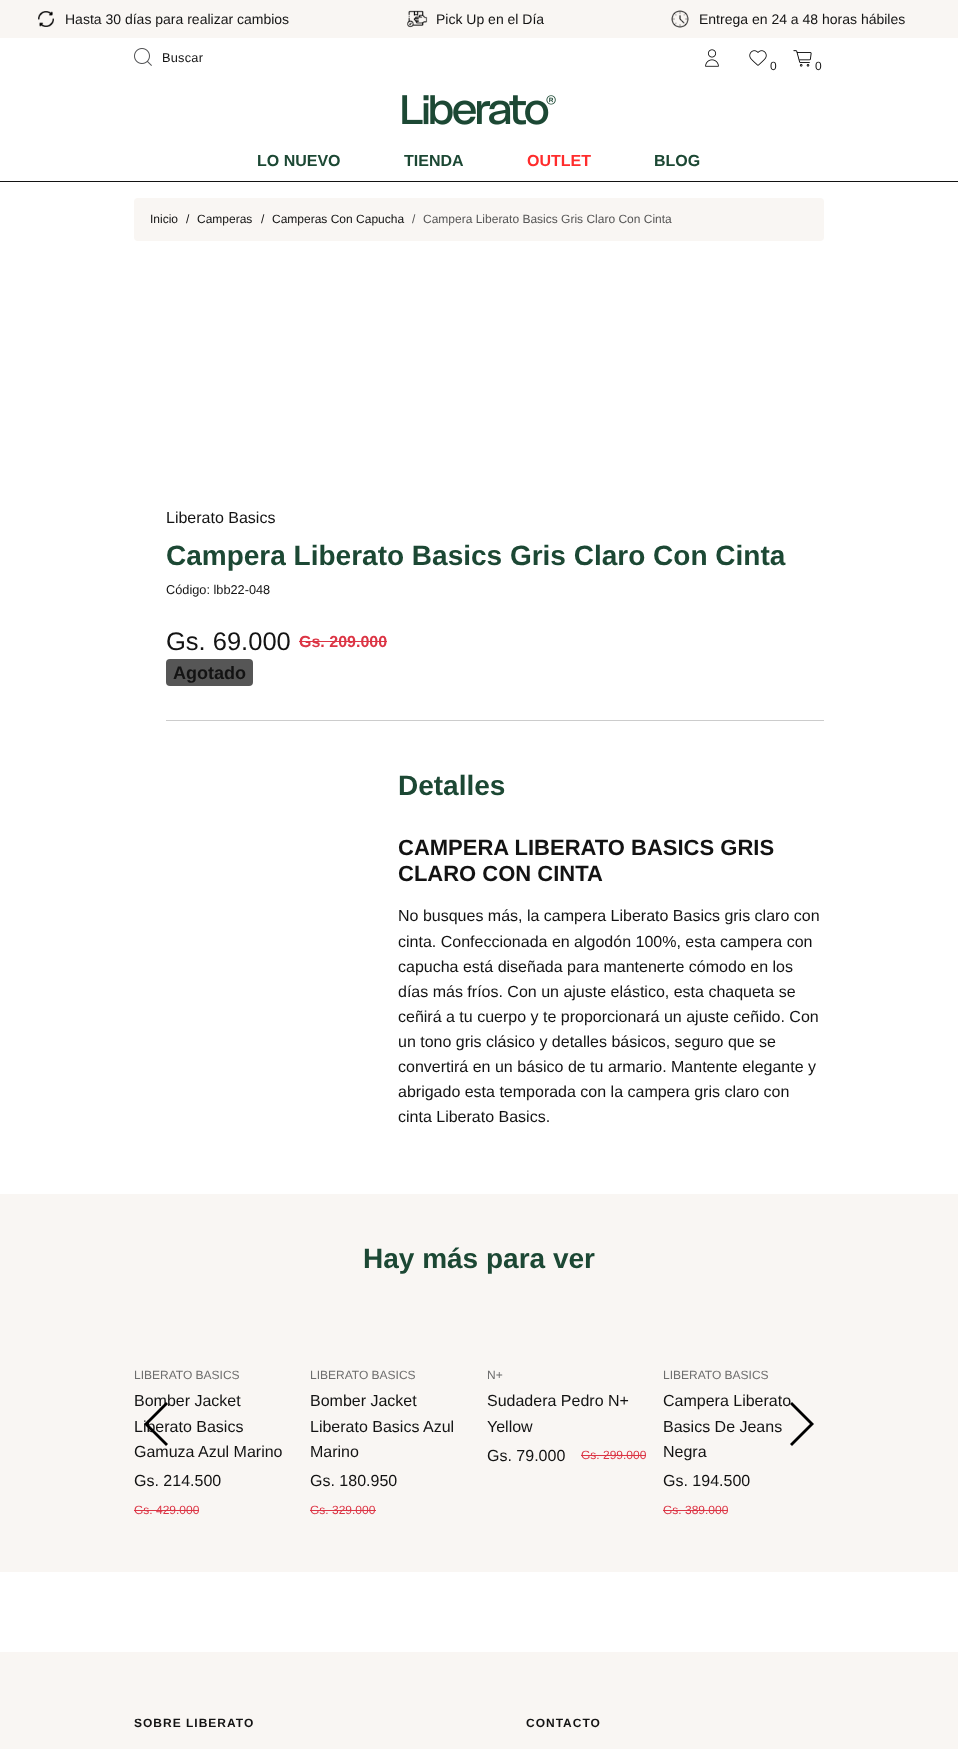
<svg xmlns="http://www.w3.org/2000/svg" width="958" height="1749">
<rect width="100%" height="100%" fill="#fff"/>
<rect y="181" width="958" height="1" fill="#131313"/>
<rect width="958" height="38" fill="#f9f6f3"/>
<image x="38" y="11" width="16" height="16" href="media/1.png"/>
<text x="65" y="24" style="font-family:Liberation Sans;font-size:14px;fill:#131313">Hasta 30 días para realizar cambios</text>
<image x="407" y="10" width="21" height="18" href="media/2.png"/>
<text x="436" y="24" style="font-family:Liberation Sans;font-size:14px;fill:#131313">Pick Up en el Día</text>
<image x="671" y="10" width="18" height="18" href="media/3.png"/>
<text x="699" y="24" style="font-family:Liberation Sans;font-size:14px;fill:#131313">Entrega en 24 a 48 horas hábiles</text>
<image x="134" y="48" width="18" height="18" href="media/4.png"/>
<text x="162" y="62" style="font-family:Liberation Sans;font-size:12.75px;letter-spacing:0.25px;fill:#131313">Buscar</text>
<image x="705" y="49" width="14" height="18" href="media/5.png"/>
<image x="749" y="50" width="18" height="16" href="media/6.png"/>
<text x="770" y="70" style="font-family:Liberation Sans;font-size:12px;fill:#131313">0</text>
<image x="793" y="50" width="19" height="17" href="media/7.png"/>
<text x="815" y="70" style="font-family:Liberation Sans;font-size:12px;fill:#131313">0</text>
<image x="402" y="95" width="154" height="30" href="media/8.png"/>
<text x="257" y="166" style="font-family:Liberation Sans;font-size:16px;font-weight:bold;fill:#1c4834">LO NUEVO</text>
<text x="404" y="166" style="font-family:Liberation Sans;font-size:16px;font-weight:bold;fill:#1c4834">TIENDA</text>
<text x="527" y="166" style="font-family:Liberation Sans;font-size:16px;font-weight:bold;fill:#ff2c2c">OUTLET</text>
<text x="654" y="166" style="font-family:Liberation Sans;font-size:16px;font-weight:bold;fill:#1c4834">BLOG</text>
<rect x="134" y="198" width="690" height="43" rx="4" fill="#f9f6f3"/>
<text x="150" y="223" style="font-family:Liberation Sans;font-size:12px;fill:#131313">Inicio</text>
<text x="186" y="223" style="font-family:Liberation Sans;font-size:12px;fill:#131313">/</text>
<text x="197" y="223" style="font-family:Liberation Sans;font-size:12px;fill:#131313">Camperas</text>
<text x="261" y="223" style="font-family:Liberation Sans;font-size:12px;fill:#131313">/</text>
<text x="272" y="223" style="font-family:Liberation Sans;font-size:12px;fill:#131313">Camperas Con Capucha</text>
<text x="412" y="223" style="font-family:Liberation Sans;font-size:12px;fill:#565656">/</text>
<text x="423" y="223" style="font-family:Liberation Sans;font-size:12px;fill:#565656">Campera Liberato Basics Gris Claro Con Cinta</text>
<rect x="166" y="720" width="658" height="1" fill="#ccc"/>
<text x="166" y="523" style="font-family:Liberation Sans;font-size:16px;fill:#131313">Liberato Basics</text>
<text x="166" y="565" style="font-family:Liberation Sans;font-size:28px;font-weight:bold;fill:#1c4834">Campera Liberato Basics Gris Claro Con Cinta</text>
<text x="166" y="594" style="font-family:Liberation Sans;font-size:12.75px;fill:#131313">Código: lbb22-048</text>
<text x="166" y="650" style="font-family:Liberation Sans;font-size:25.5px;fill:#131313">Gs. 69.000</text>
<text x="299" y="647" style="font-family:Liberation Sans;font-size:16px;font-weight:bold;fill:#dc3545">Gs. 209.000</text>
<rect x="299" y="641" width="88" height="1" fill="#dc3545"/>
<rect x="166" y="659" width="87" height="27" rx="4" fill="#565656"/>
<text x="173" y="679" style="font-family:Liberation Sans;font-size:18px;font-weight:bold;fill:#131313">Agotado</text>
<text x="398" y="795" style="font-family:Liberation Sans;font-size:28px;font-weight:bold;fill:#1c4834">Detalles</text>
<text x="398" y="855" style="font-family:Liberation Sans;font-size:22px;font-weight:bold;fill:#131313">CAMPERA LIBERATO BASICS GRIS</text>
<text x="398" y="881" style="font-family:Liberation Sans;font-size:22px;font-weight:bold;fill:#131313">CLARO CON CINTA</text>
<text x="398" y="921" style="font-family:Liberation Sans;font-size:16px;fill:#131313">No busques más, la campera Liberato Basics gris claro con</text>
<text x="398" y="947" style="font-family:Liberation Sans;font-size:16px;fill:#131313">cinta. Confeccionada en algodón 100%, esta campera con</text>
<text x="398" y="972" style="font-family:Liberation Sans;font-size:16px;fill:#131313">capucha está diseñada para mantenerte cómodo en los</text>
<text x="398" y="997" style="font-family:Liberation Sans;font-size:16px;fill:#131313">días más fríos. Con un ajuste elástico, esta chaqueta se</text>
<text x="398" y="1022" style="font-family:Liberation Sans;font-size:16px;fill:#131313">ceñirá a tu cuerpo y te proporcionará un ajuste ceñido. Con</text>
<text x="398" y="1047" style="font-family:Liberation Sans;font-size:16px;fill:#131313">un tono gris clásico y detalles básicos, seguro que se</text>
<text x="398" y="1072" style="font-family:Liberation Sans;font-size:16px;fill:#131313">convertirá en un básico de tu armario. Mantente elegante y</text>
<text x="398" y="1097" style="font-family:Liberation Sans;font-size:16px;fill:#131313">abrigado esta temporada con la campera gris claro con</text>
<text x="398" y="1122" style="font-family:Liberation Sans;font-size:16px;fill:#131313">cinta Liberato Basics.</text>
<rect y="1194" width="958" height="378" fill="#f9f6f3"/>
<text x="363" y="1268" style="font-family:Liberation Sans;font-size:28px;font-weight:bold;fill:#1c4834">Hay más para ver</text>
<text x="134" y="1379" style="font-family:Liberation Sans;font-size:12px;fill:#6d6d6d">LIBERATO BASICS</text>
<text x="134" y="1406" style="font-family:Liberation Sans;font-size:16px;fill:#131313">Bomber Jacket</text>
<text x="134" y="1432" style="font-family:Liberation Sans;font-size:16px;fill:#131313">Liberato Basics</text>
<text x="134" y="1457" style="font-family:Liberation Sans;font-size:16px;fill:#131313">Gamuza Azul Marino</text>
<text x="134" y="1486" style="font-family:Liberation Sans;font-size:16px;fill:#131313">Gs. 214.500</text>
<text x="134" y="1514" style="font-family:Liberation Sans;font-size:12px;fill:#dc3545">Gs. 429.000</text>
<rect x="134" y="1510" width="65" height="1" fill="#dc3545"/>
<text x="310" y="1379" style="font-family:Liberation Sans;font-size:12px;fill:#6d6d6d">LIBERATO BASICS</text>
<text x="310" y="1406" style="font-family:Liberation Sans;font-size:16px;fill:#131313">Bomber Jacket</text>
<text x="310" y="1432" style="font-family:Liberation Sans;font-size:16px;fill:#131313">Liberato Basics Azul</text>
<text x="310" y="1457" style="font-family:Liberation Sans;font-size:16px;fill:#131313">Marino</text>
<text x="310" y="1486" style="font-family:Liberation Sans;font-size:16px;fill:#131313">Gs. 180.950</text>
<text x="310" y="1514" style="font-family:Liberation Sans;font-size:12px;fill:#dc3545">Gs. 329.000</text>
<rect x="310" y="1510" width="66" height="1" fill="#dc3545"/>
<text x="487" y="1379" style="font-family:Liberation Sans;font-size:12px;fill:#6d6d6d">N+</text>
<text x="487" y="1406" style="font-family:Liberation Sans;font-size:16px;fill:#131313">Sudadera Pedro N+</text>
<text x="487" y="1432" style="font-family:Liberation Sans;font-size:16px;fill:#131313">Yellow</text>
<text x="487" y="1461" style="font-family:Liberation Sans;font-size:16px;fill:#131313">Gs. 79.000</text>
<text x="581" y="1459" style="font-family:Liberation Sans;font-size:12px;fill:#dc3545">Gs. 299.000</text>
<rect x="581" y="1455" width="65" height="1" fill="#dc3545"/>
<text x="663" y="1379" style="font-family:Liberation Sans;font-size:12px;fill:#6d6d6d">LIBERATO BASICS</text>
<text x="663" y="1406" style="font-family:Liberation Sans;font-size:16px;fill:#131313">Campera Liberato</text>
<text x="663" y="1432" style="font-family:Liberation Sans;font-size:16px;fill:#131313">Basics De Jeans</text>
<text x="663" y="1457" style="font-family:Liberation Sans;font-size:16px;fill:#131313">Negra</text>
<text x="663" y="1486" style="font-family:Liberation Sans;font-size:16px;fill:#131313">Gs. 194.500</text>
<text x="663" y="1514" style="font-family:Liberation Sans;font-size:12px;fill:#dc3545">Gs. 389.000</text>
<rect x="663" y="1510" width="65" height="1" fill="#dc3545"/>
<path d="M144 1424l22-22l2 2l-20 20l20 20l-2 2z" fill="#000"/>
<path d="M814 1424l-22 22l-2-2l20-20l-20-20l2-2z" fill="#000"/>
<rect y="1652" width="958" height="97" fill="#f9f6f3"/>
<text x="134" y="1727" style="font-family:Liberation Sans;font-size:12px;font-weight:bold;letter-spacing:1px;fill:#131313">SOBRE LIBERATO</text>
<text x="526" y="1727" style="font-family:Liberation Sans;font-size:12px;font-weight:bold;letter-spacing:1px;fill:#131313">CONTACTO</text>
</svg>
